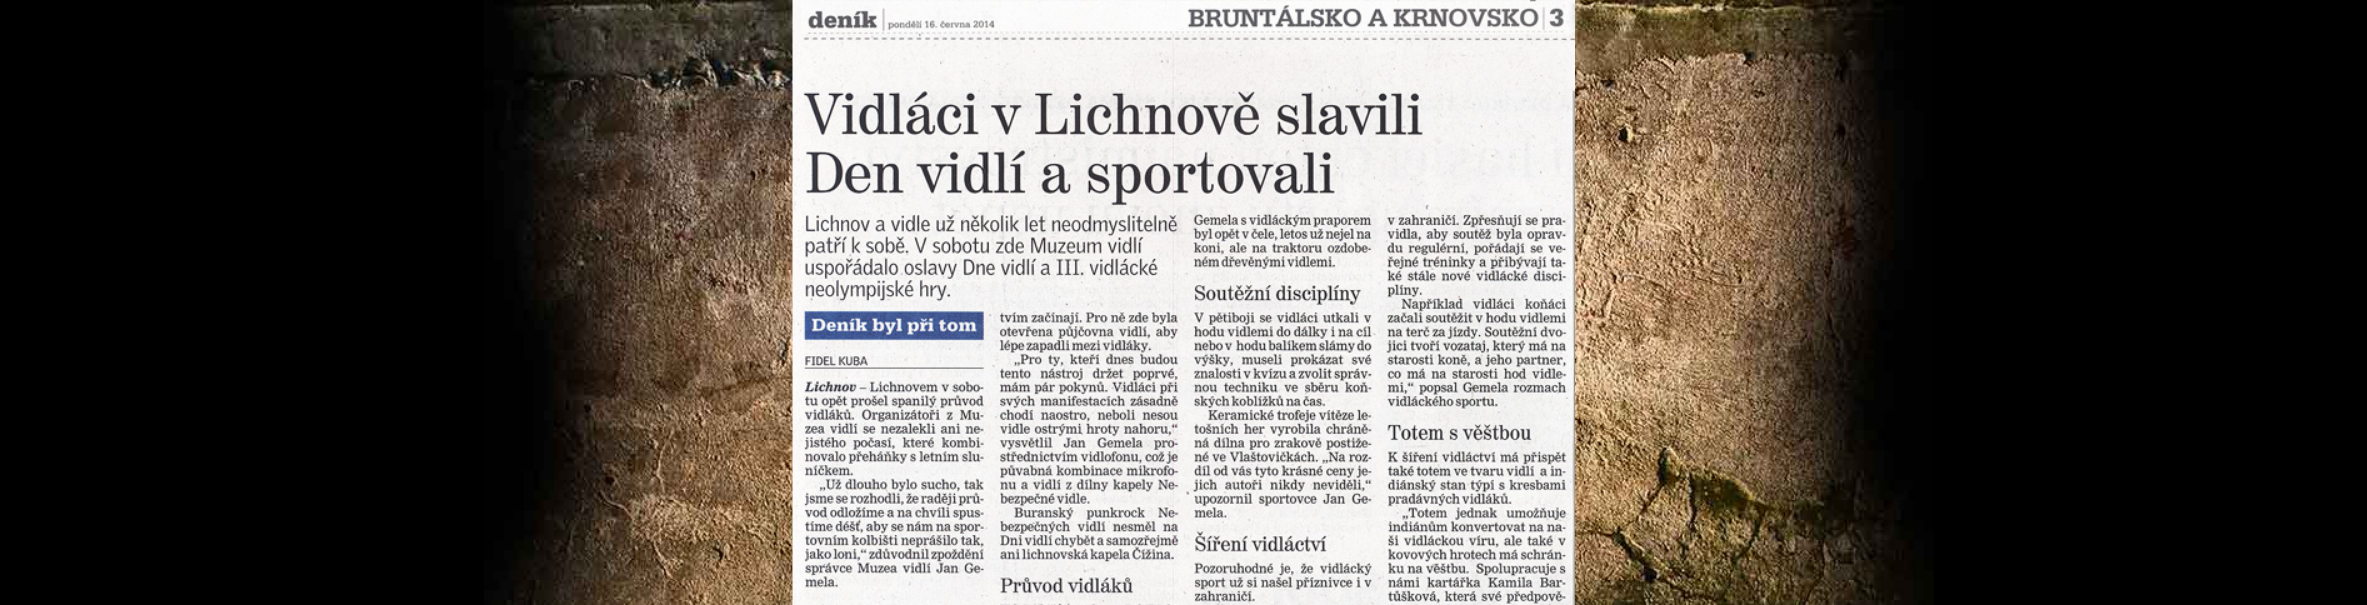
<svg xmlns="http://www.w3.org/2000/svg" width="2367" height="605">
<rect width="100%" height="100%" fill="#000"/>
<image x="484" y="0" width="1450" height="605" href="media/1.png"/>
<image x="792" y="0" width="783" height="605" href="media/2.png"/>
</svg>
